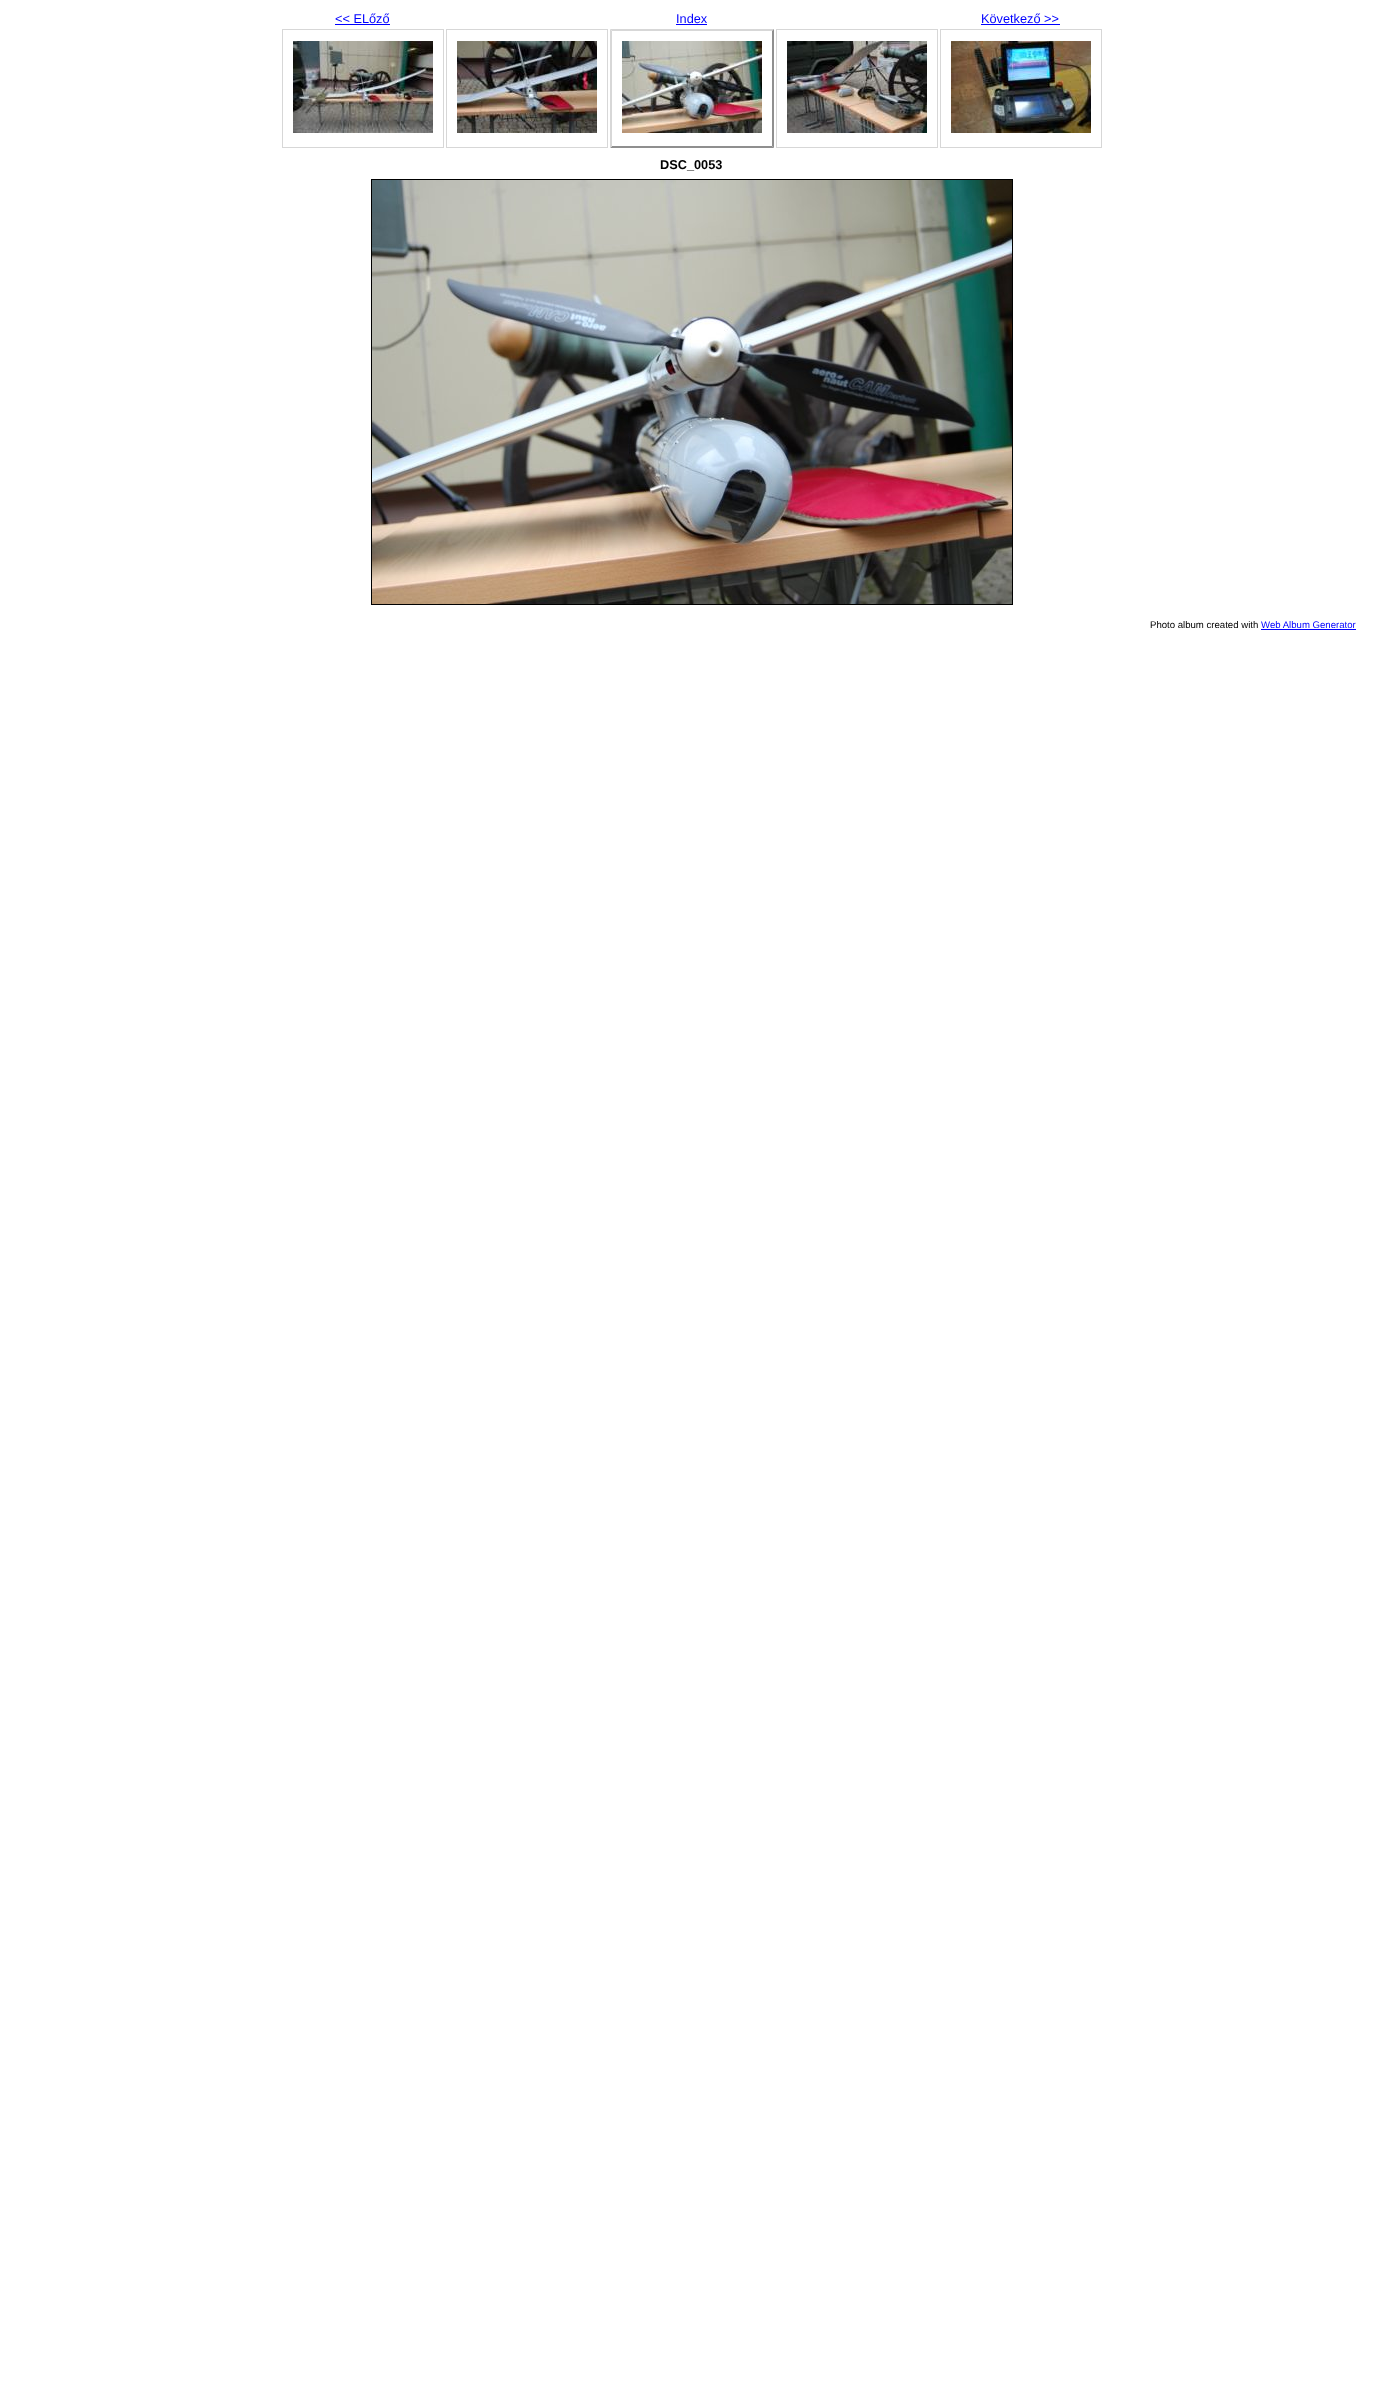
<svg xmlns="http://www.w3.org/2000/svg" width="1383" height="2381">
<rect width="100%" height="100%" fill="#fff"/>
<text x="335" y="23" style="font-family:Liberation Sans;font-size:12.75px;fill:#00f">&lt;&lt; ELőző</text>
<rect x="335" y="24" width="55" height="1" fill="#00f"/>
<text x="676" y="23" style="font-family:Liberation Sans;font-size:12.75px;fill:#00f">Index</text>
<rect x="676" y="24" width="31" height="1" fill="#00f"/>
<text x="981" y="23" style="font-family:Liberation Sans;font-size:12.75px;fill:#00f">Következő &gt;&gt;</text>
<rect x="981" y="24" width="79" height="1" fill="#00f"/>
<rect x="282.5" y="29.5" width="161" height="118" fill="none" stroke="#d7d7d7"/>
<image x="293" y="41" width="140" height="92" href="media/1.png"/>
<rect x="446.5" y="29.5" width="161" height="118" fill="none" stroke="#d7d7d7"/>
<image x="457" y="41" width="140" height="92" href="media/2.png"/>
<path d="M610 29h164l-2 2h-160z" fill="#d7d7d7"/>
<path d="M774 29v119l-2-2v-115z" fill="#8f8f8f"/>
<path d="M774 148h-164l2-2h160z" fill="#8f8f8f"/>
<path d="M610 148v-119l2 2v115z" fill="#d7d7d7"/>
<image x="622" y="41" width="140" height="92" href="media/3.png"/>
<rect x="776.5" y="29.5" width="161" height="118" fill="none" stroke="#d7d7d7"/>
<image x="787" y="41" width="140" height="92" href="media/4.png"/>
<rect x="940.5" y="29.5" width="161" height="118" fill="none" stroke="#d7d7d7"/>
<image x="951" y="41" width="140" height="92" href="media/5.png"/>
<text x="660" y="169" style="font-family:Liberation Sans;font-size:12.75px;font-weight:bold;fill:#000">DSC_0053</text>
<rect x="371.5" y="179.5" width="641" height="425" fill="none" stroke="#000"/>
<image x="372" y="180" width="640" height="424" href="media/6.png"/>
<text x="1150" y="628" style="font-family:Liberation Sans;font-size:9.6px;fill:#000">Photo album created with</text>
<text x="1261" y="628" style="font-family:Liberation Sans;font-size:9.6px;fill:#00f">Web Album Generator</text>
<rect x="1261" y="629" width="95" height="1" fill="#00f"/>
</svg>
